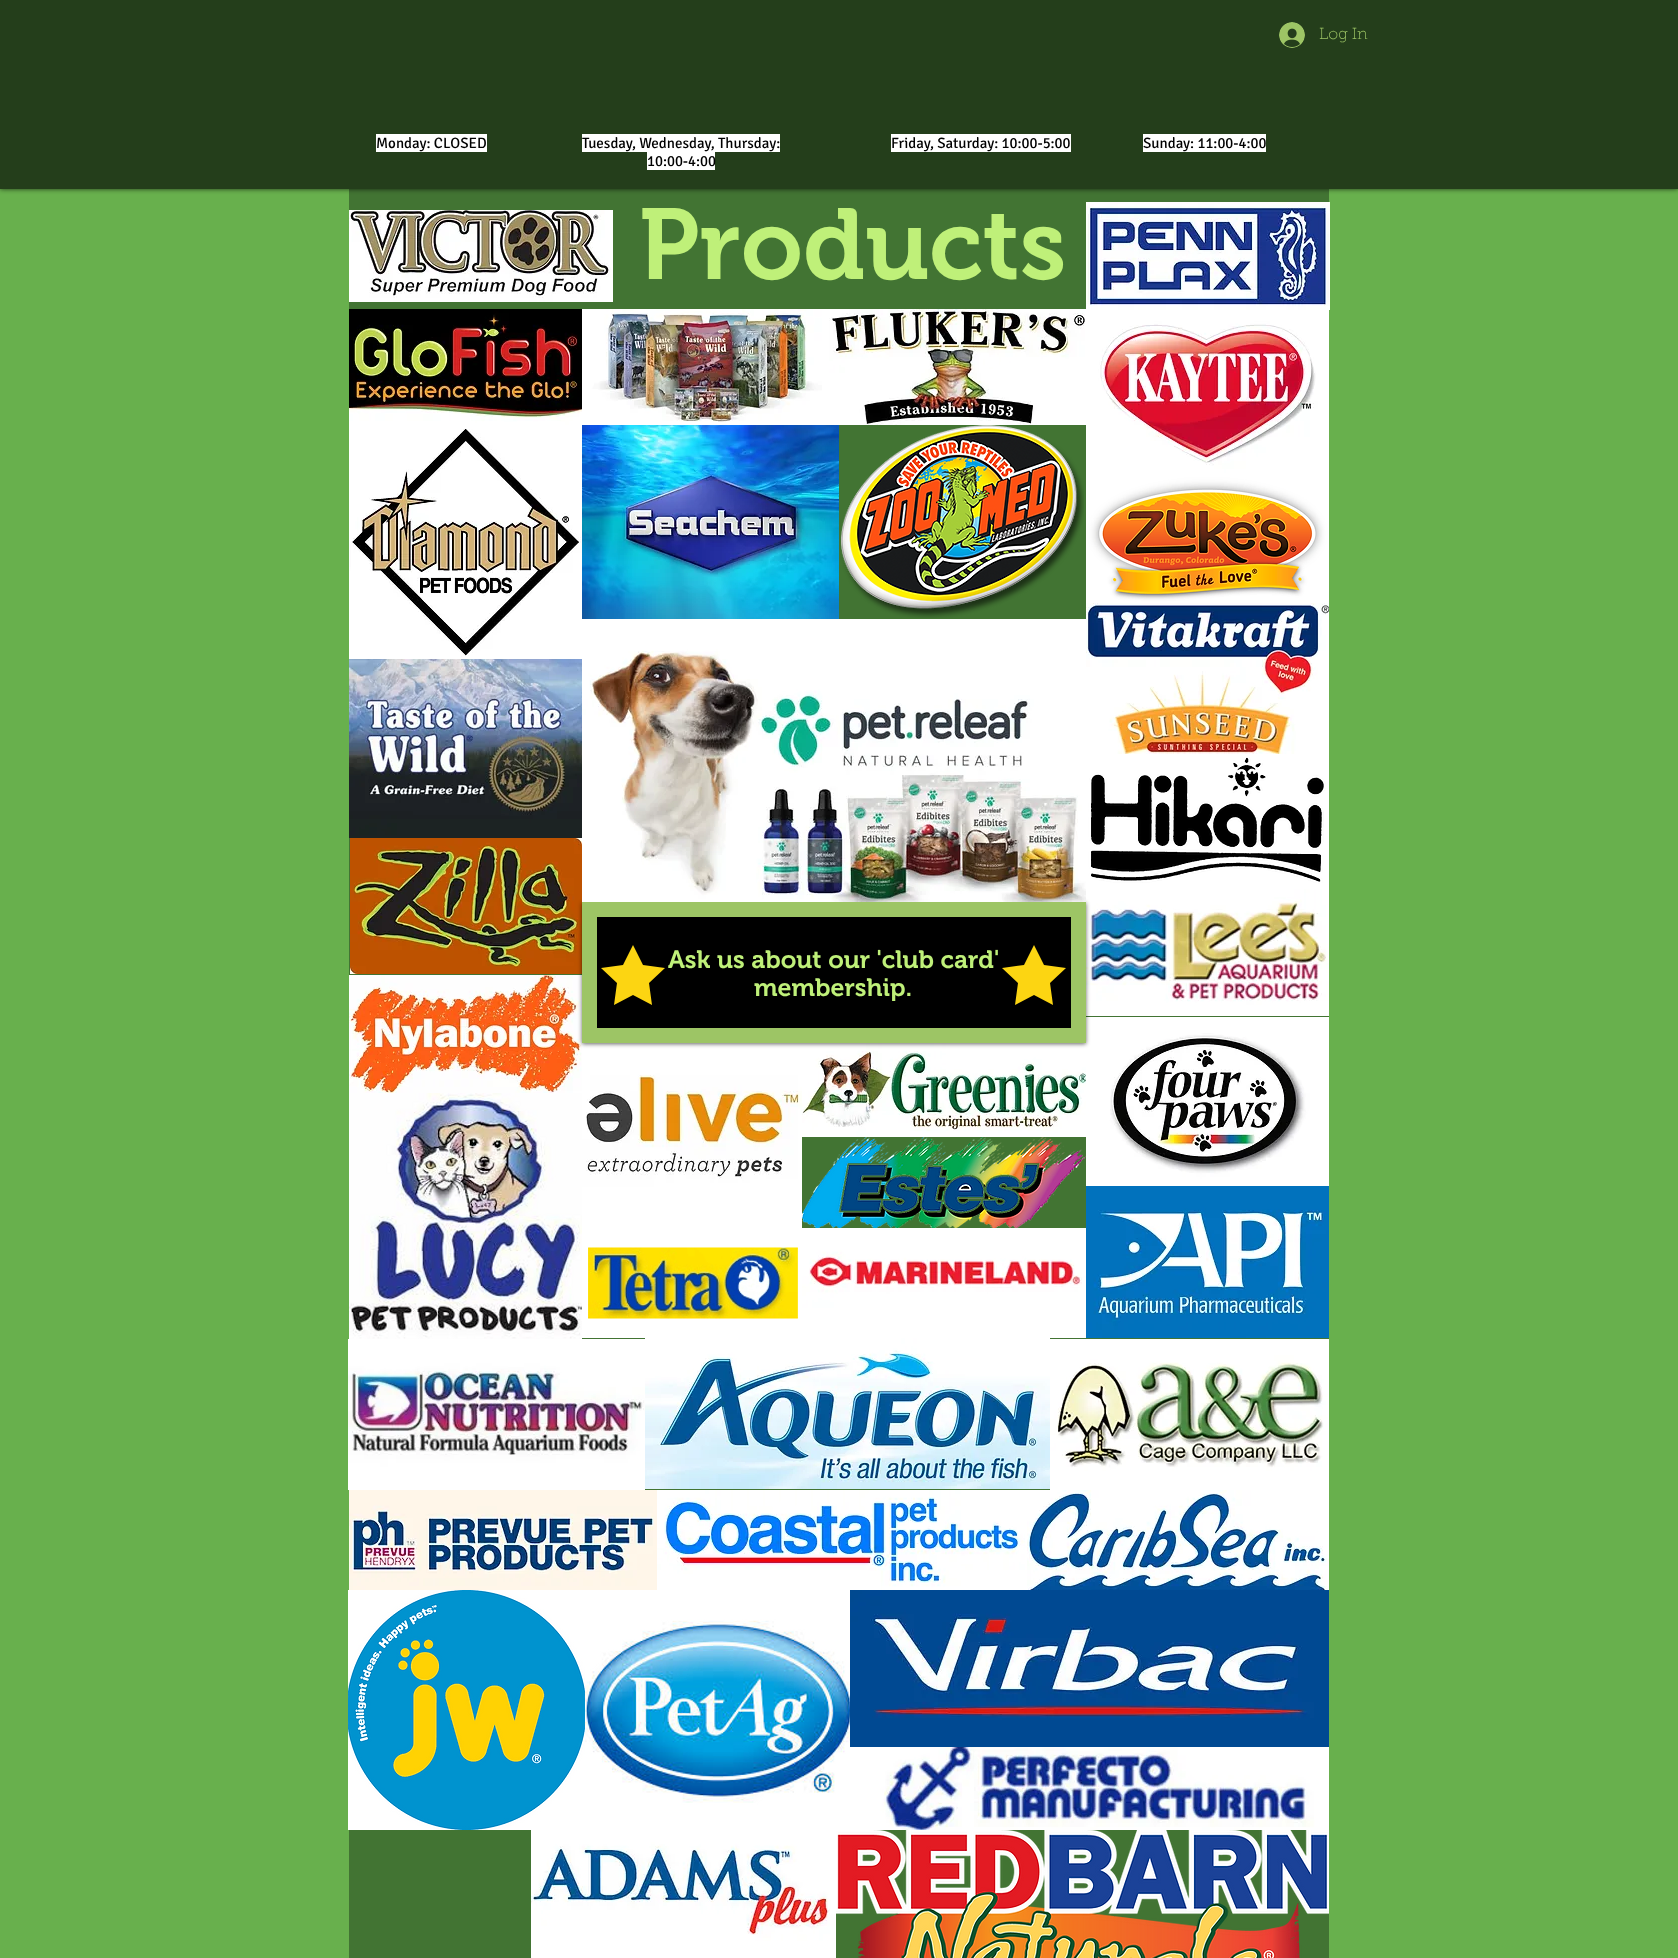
<svg xmlns="http://www.w3.org/2000/svg" width="1678" height="1958">
<rect width="100%" height="100%" fill="#68b04d"/>
<rect x="349" y="189" width="980" height="1769" fill="#427433"/>
<rect width="1678" height="189" fill="#000000b3" filter="blur(2.5px)"/>
<rect width="1678" height="189" fill="#243e1b"/>
<image x="1279" y="22" width="26" height="26" href="media/1.png"/>
<text x="1319" y="39" style="font-family:'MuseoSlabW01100';font-size:16px;font-weight:100;fill:#9dc565">Log In</text>
<rect x="376" y="134" width="111" height="18" fill="#fff"/>
<text x="376" y="148" style="font-family:Signika;font-size:15px;fill:#000">Monday: CLOSED</text>
<rect x="582" y="134" width="198" height="18" fill="#fff"/>
<text x="582" y="148" style="font-family:Signika;font-size:15px;fill:#000">Tuesday, Wednesday, Thursday:</text>
<rect x="647" y="152" width="68" height="18" fill="#fff"/>
<text x="647" y="166" style="font-family:Signika;font-size:15px;fill:#000">10:00-4:00</text>
<rect x="891" y="134" width="180" height="18" fill="#fff"/>
<text x="891" y="148" style="font-family:Signika;font-size:15px;fill:#000">Friday, Saturday: 10:00-5:00</text>
<rect x="1143" y="134" width="123" height="18" fill="#fff"/>
<text x="1143" y="148" style="font-family:Signika;font-size:15px;fill:#000">Sunday: 11:00-4:00</text>
<image x="349" y="210" width="264" height="92" href="media/2.png"/>
<text x="639" y="279" style="font-family:'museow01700';font-size:100px;font-weight:600;fill:#bff079">Products</text>
<image x="1086" y="202" width="244" height="108" href="media/3.png"/>
<image x="349" y="309" width="233" height="116" href="media/4.png"/>
<image x="582" y="309" width="247" height="116" href="media/5.png"/>
<image x="829" y="309" width="257" height="116" href="media/6.png"/>
<image x="1086" y="310" width="243" height="165" href="media/7.png"/>
<image x="349" y="425" width="233" height="234" href="media/8.png"/>
<image x="582" y="425" width="257" height="194" href="media/9.png"/>
<image x="840" y="425" width="244" height="193" href="media/10.png"/>
<image x="1086" y="475" width="243" height="128" href="media/11.png"/>
<image x="349" y="659" width="233" height="179" href="media/12.png"/>
<image x="350" y="838" width="232" height="136" href="media/16.png"/>
<image x="1086" y="889" width="243" height="127" href="media/17.png"/>
<image x="349" y="975" width="233" height="118" href="media/18.png"/>
<image x="582" y="1043" width="220" height="184" href="media/19.png"/>
<image x="802" y="1043" width="284" height="94" href="media/20.png"/>
<image x="1086" y="1017" width="243" height="169" href="media/21.png"/>
<rect x="582" y="903" width="504" height="141" fill="#00000099" filter="blur(2px)"/>
<image x="582" y="619" width="504" height="283" href="media/13.png"/>
<image x="1086" y="603" width="243" height="151" href="media/14.png"/>
<image x="1086" y="754" width="243" height="135" href="media/15.png"/>
<rect x="589.5" y="909.5" width="489" height="126" fill="#000" stroke="#9dc565" stroke-width="15"/>
<path d="M633 945l10 20l22 3l-16 15l3 22l-19-10l-19 10l3-22l-16-15l22-3z" fill="#fcd512"/>
<text x="668" y="968" style="font-family:'museow01700';font-size:25px;font-weight:600;fill:#bff079">Ask us about our 'club card'</text>
<text x="754" y="996" style="font-family:'museow01700';font-size:25px;font-weight:600;fill:#bff079">membership.</text>
<path d="M1034 945l10 20l22 3l-16 15l3 22l-19-10l-19 10l3-22l-16-15l22-3z" fill="#fcd512"/>
<image x="349" y="1093" width="233" height="246" href="media/22.png"/>
<image x="582" y="1227" width="220" height="111" href="media/23.png"/>
<image x="802" y="1137" width="284" height="91" href="media/24.png"/>
<image x="1086" y="1186" width="243" height="152" href="media/25.png"/>
<image x="802" y="1228" width="284" height="110" href="media/26.png"/>
<image x="348" y="1339" width="297" height="151" href="media/27.png"/>
<image x="645" y="1338" width="405" height="151" href="media/28.png"/>
<image x="1050" y="1339" width="279" height="151" href="media/29.png"/>
<image x="349" y="1490" width="308" height="100" href="media/30.png"/>
<image x="657" y="1490" width="370" height="100" href="media/31.png"/>
<image x="1027" y="1490" width="302" height="100" href="media/32.png"/>
<image x="348" y="1590" width="237" height="240" href="media/33.png"/>
<image x="585" y="1590" width="265" height="240" href="media/34.png"/>
<image x="850" y="1590" width="479" height="157" href="media/35.png"/>
<image x="850" y="1747" width="479" height="83" href="media/36.png"/>
<image x="531" y="1830" width="305" height="111" href="media/37.png"/>
<image x="836" y="1830" width="493" height="128" href="media/38.png"/>
<rect x="531" y="1941" width="305" height="17" fill="#fff"/>
</svg>
